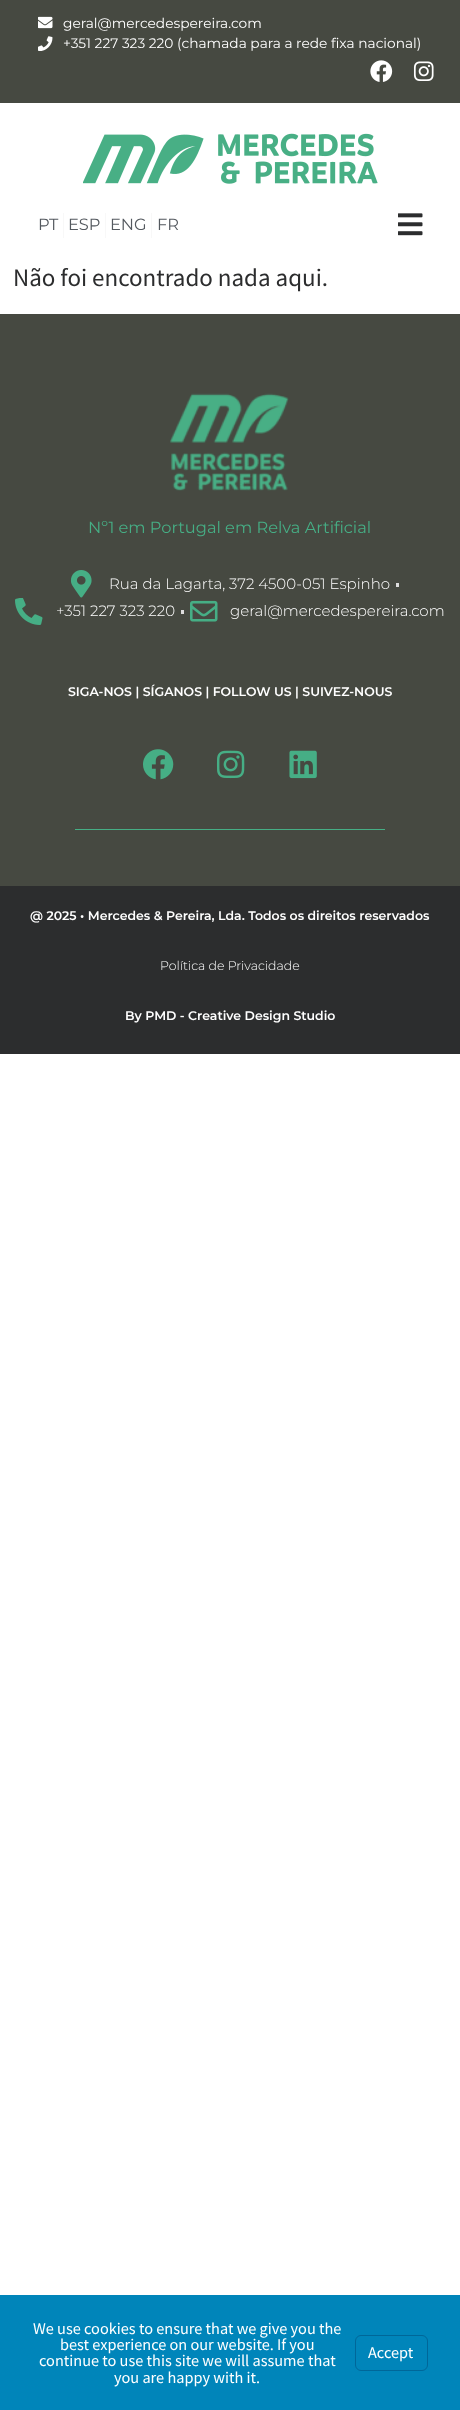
<svg xmlns="http://www.w3.org/2000/svg" width="460" height="2410">
<rect width="100%" height="100%" fill="#fff"/>
<rect width="460" height="103" fill="#464941"/>
<image x="38" y="16" width="15" height="13" href="media/1.png"/>
<text x="63" y="28" style="font-family:Montserrat;font-size:13.75px;fill:#fff">geral@mercedespereira.com</text>
<image x="38" y="36" width="15" height="15" href="media/2.png"/>
<text x="63" y="48" style="font-family:Montserrat;font-size:13.75px;fill:#fff">+351 227 323 220 (chamada para a rede fixa nacional)</text>
<image x="370" y="60" width="23" height="22" href="media/3.png"/>
<image x="413" y="61" width="21" height="20" href="media/4.png"/>
<image x="83" y="133" width="295" height="51" href="media/5.png"/>
<text x="38" y="230" style="font-family:Montserrat;font-size:16.25px;fill:#54595f">PT</text>
<rect x="63" y="213" width="1" height="25" fill="#f8f8f8"/>
<text x="68" y="230" style="font-family:Montserrat;font-size:16.25px;fill:#54595f">ESP</text>
<rect x="105" y="213" width="1" height="25" fill="#f8f8f8"/>
<text x="110" y="230" style="font-family:Montserrat;font-size:16.25px;fill:#54595f">ENG</text>
<rect x="151" y="213" width="1" height="25" fill="#f8f8f8"/>
<text x="157" y="230" style="font-family:Montserrat;font-size:16.25px;fill:#54595f">FR</text>
<image x="398" y="213" width="25" height="23" href="media/6.png"/>
<text x="13" y="286" style="font-family:Source Sans Pro;font-size:25px;fill:#2c2d2e">Não foi encontrado nada aqui.</text>
<rect y="314" width="460" height="572" fill="#464941"/>
<image x="170" y="393" width="119" height="98" href="media/7.png"/>
<text x="88" y="533" style="font-family:Montserrat;font-size:16.25px;fill:#46ae85">Nº1 em Portugal em Relva Artificial</text>
<image x="70" y="570" width="22" height="28" href="media/8.png"/>
<text x="109" y="589" style="font-family:Montserrat;font-size:15px;font-weight:300;fill:#fff">Rua da Lagarta, 372 4500-051 Espinho</text>
<rect x="396" y="583" width="3" height="4" fill="#ddd"/>
<image x="15" y="598" width="28" height="27" href="media/9.png"/>
<text x="56" y="616" style="font-family:Montserrat;font-size:15px;font-weight:300;fill:#fff">+351 227 323 220</text>
<rect x="181" y="610" width="3" height="4" fill="#ddd"/>
<image x="190" y="600" width="28" height="22" href="media/10.png"/>
<text x="230" y="616" style="font-family:Montserrat;font-size:15px;font-weight:300;fill:#fff">geral@mercedespereira.com</text>
<text x="68" y="696" style="font-family:Montserrat;font-size:12.5px;font-weight:600;fill:#fff">SIGA-NOS | SÍGANOS | FOLLOW US | SUIVEZ-NOUS</text>
<image x="143" y="749" width="31" height="31" href="media/11.png"/>
<image x="216" y="750" width="29" height="29" href="media/12.png"/>
<image x="289" y="750" width="28" height="29" href="media/13.png"/>
<rect x="75" y="829" width="310" height="1" fill="#46ae85"/>
<rect y="886" width="460" height="168" fill="#2c2d2e"/>
<text x="30" y="920" style="font-family:Montserrat;font-size:12.5px;font-weight:600;fill:#fff">@ 2025 • Mercedes &amp; Pereira, Lda. Todos os direitos reservados</text>
<text x="160" y="970" style="font-family:Montserrat;font-size:12.5px;font-weight:300;fill:#fff">Política de Privacidade</text>
<text x="125" y="1020" style="font-family:Montserrat;font-size:12.5px;font-weight:600;fill:#fff">By PMD - Creative Design Studio</text>
<rect y="2295" width="460" height="115" fill="#0085ba"/>
<text x="33" y="2334" style="font-family:Source Sans Pro;font-size:16.25px;fill:#fff">We use cookies to ensure that we give you the</text>
<text x="60" y="2350" style="font-family:Source Sans Pro;font-size:16.25px;fill:#fff">best experience on our website. If you</text>
<text x="39" y="2366" style="font-family:Source Sans Pro;font-size:16.25px;fill:#fff">continue to use this site we will assume that</text>
<text x="114" y="2383" style="font-family:Source Sans Pro;font-size:16.25px;fill:#fff">you are happy with it.</text>
<rect x="355.5" y="2335.5" width="72" height="35" rx="5.5" fill="none" stroke="#006799"/>
<text x="368" y="2358" style="font-family:Source Sans Pro;font-size:16.25px;fill:#fff">Accept</text>
</svg>
